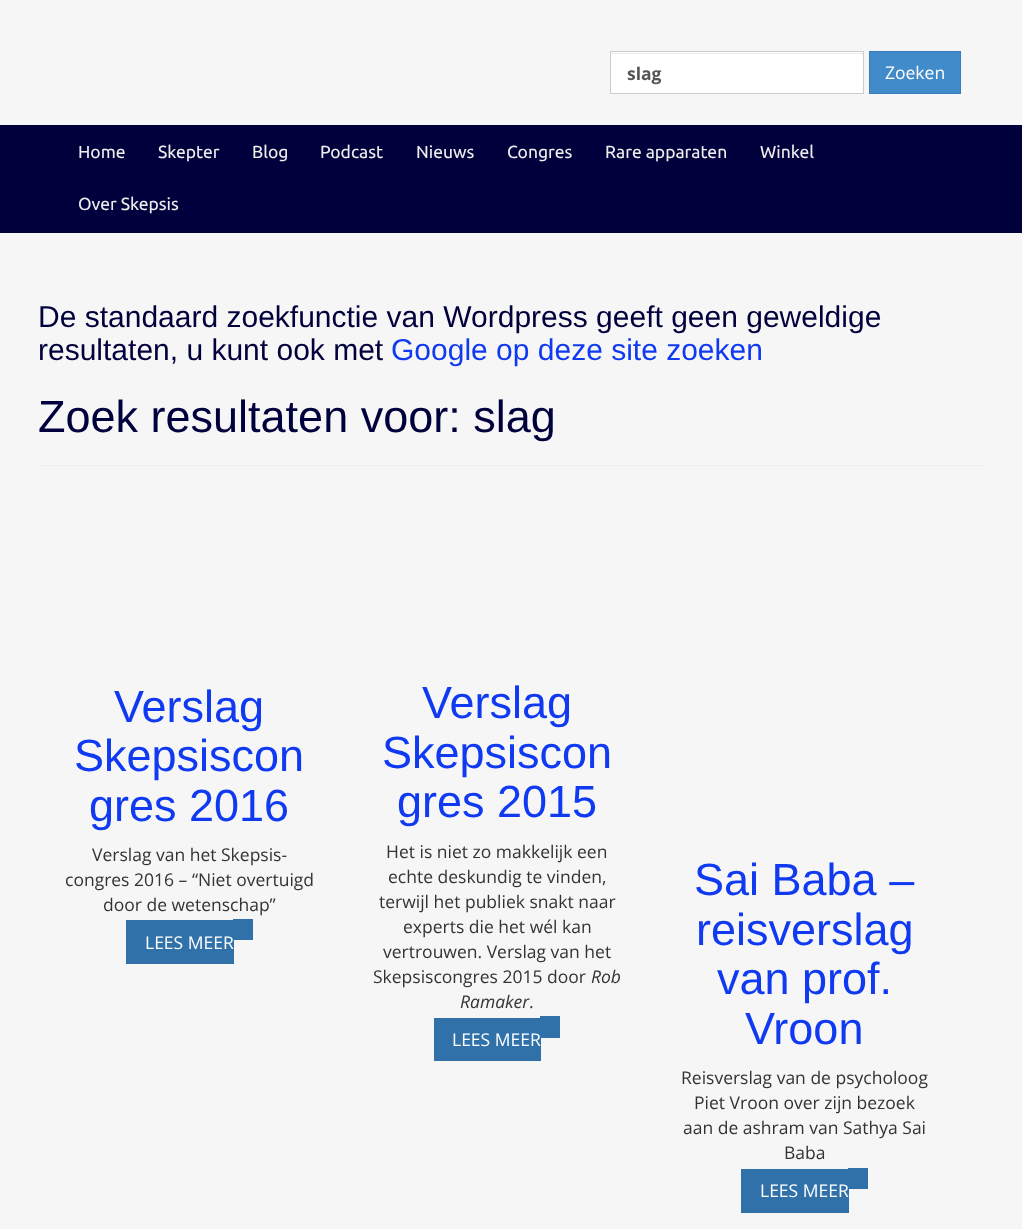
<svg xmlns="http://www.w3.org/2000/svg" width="1022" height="1229">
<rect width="100%" height="100%" fill="#f6f6f6"/>
<rect x="611" y="52" width="252" height="41" fill="#fff"/>
<rect x="611" y="53" width="252" height="1" fill="#ececec"/>
<rect x="610.5" y="51.5" width="253" height="42" fill="none" stroke="#ccc"/>
<text x="627" y="80" style="font-family:Open Sans;font-size:17.5px;font-weight:bold;fill:#555">slag</text>
<rect x="869.5" y="51.5" width="91" height="42" fill="#428bca" stroke="#357ebd"/>
<text x="885" y="79" style="font-family:Open Sans;font-size:17.5px;fill:#fff">Zoeken</text>
<rect y="125" width="1022" height="108" fill="#00003d"/>
<text x="78" y="158" style="font-family:Ubuntu;font-size:17.5px;fill:#eee">Home</text>
<text x="158" y="158" style="font-family:Ubuntu;font-size:17.5px;fill:#eee">Skepter</text>
<text x="252" y="158" style="font-family:Ubuntu;font-size:17.5px;fill:#eee">Blog</text>
<text x="320" y="158" style="font-family:Ubuntu;font-size:17.5px;fill:#eee">Podcast</text>
<text x="416" y="158" style="font-family:Ubuntu;font-size:17.5px;fill:#eee">Nieuws</text>
<text x="507" y="158" style="font-family:Ubuntu;font-size:17.5px;fill:#eee">Congres</text>
<text x="605" y="158" style="font-family:Ubuntu;font-size:17.5px;fill:#eee">Rare apparaten</text>
<text x="760" y="158" style="font-family:Ubuntu;font-size:17.5px;fill:#eee">Winkel</text>
<text x="78" y="210" style="font-family:Ubuntu;font-size:17.5px;fill:#eee">Over Skepsis</text>
<rect x="38" y="465" width="947" height="1" fill="#eee"/>
<text x="38" y="327" style="font-family:Liberation Sans;font-size:30px;fill:#00003d">De standaard zoekfunctie van Wordpress geeft geen geweldige</text>
<text x="38" y="360" style="font-family:Liberation Sans;font-size:30px;fill:#00003d">resultaten, u kunt ook met</text>
<text x="391" y="360" style="font-family:Liberation Sans;font-size:30px;fill:#103af2">Google op deze site zoeken</text>
<text x="38" y="432" style="font-family:Liberation Sans;font-size:45px;fill:#00003d">Zoek resultaten voor: slag</text>
<text x="114" y="722" style="font-family:Liberation Sans;font-size:45px;fill:#103af2">Verslag</text>
<text x="74" y="771" style="font-family:Liberation Sans;font-size:45px;fill:#103af2">Skepsiscon</text>
<text x="89" y="821" style="font-family:Liberation Sans;font-size:45px;fill:#103af2">gres 2016</text>
<text x="92" y="861" style="font-family:Open Sans;font-size:17.5px;fill:#333">Verslag van het Skepsis-</text>
<text x="65" y="886" style="font-family:Open Sans;font-size:17.5px;fill:#333">congres 2016 – “Niet overtuigd</text>
<text x="103" y="911" style="font-family:Open Sans;font-size:17.5px;fill:#333">door de wetenschap”</text>
<rect x="126" y="920" width="108" height="44" fill="#3071a9"/>
<rect x="233" y="919" width="20" height="21" fill="#3071a9"/>
<text x="145" y="949" style="font-family:Open Sans;font-size:17.5px;fill:#fff">LEES MEER</text>
<text x="422" y="718" style="font-family:Liberation Sans;font-size:45px;fill:#103af2">Verslag</text>
<text x="382" y="768" style="font-family:Liberation Sans;font-size:45px;fill:#103af2">Skepsiscon</text>
<text x="397" y="817" style="font-family:Liberation Sans;font-size:45px;fill:#103af2">gres 2015</text>
<text x="386" y="858" style="font-family:Open Sans;font-size:17.5px;fill:#333">Het is niet zo makkelijk een</text>
<text x="388" y="883" style="font-family:Open Sans;font-size:17.5px;fill:#333">echte deskundig te vinden,</text>
<text x="379" y="908" style="font-family:Open Sans;font-size:17.5px;fill:#333">terwijl het publiek snakt naar</text>
<text x="403" y="933" style="font-family:Open Sans;font-size:17.5px;fill:#333">experts die het wél kan</text>
<text x="383" y="958" style="font-family:Open Sans;font-size:17.5px;fill:#333">vertrouwen. Verslag van het</text>
<text x="373" y="983" style="font-family:Open Sans;font-size:17.5px;fill:#333">Skepsiscongres 2015 door</text>
<text x="591" y="983" style="font-family:Open Sans;font-size:17.5px;font-style:italic;fill:#333">Rob</text>
<text x="460" y="1008" style="font-family:Open Sans;font-size:17.5px;font-style:italic;fill:#333">Ramaker</text>
<text x="529" y="1008" style="font-family:Open Sans;font-size:17.5px;fill:#333">.</text>
<rect x="434" y="1018" width="107" height="43" fill="#3071a9"/>
<rect x="540" y="1016" width="20" height="22" fill="#3071a9"/>
<text x="452" y="1046" style="font-family:Open Sans;font-size:17.5px;fill:#fff">LEES MEER</text>
<text x="694" y="895" style="font-family:Liberation Sans;font-size:45px;fill:#103af2">Sai Baba –</text>
<text x="696" y="945" style="font-family:Liberation Sans;font-size:45px;fill:#103af2">reisverslag</text>
<text x="717" y="994" style="font-family:Liberation Sans;font-size:45px;fill:#103af2">van prof.</text>
<text x="745" y="1044" style="font-family:Liberation Sans;font-size:45px;fill:#103af2">Vroon</text>
<text x="681" y="1084" style="font-family:Open Sans;font-size:17.5px;fill:#333">Reisverslag van de psycholoog</text>
<text x="694" y="1109" style="font-family:Open Sans;font-size:17.5px;fill:#333">Piet Vroon over zijn bezoek</text>
<text x="683" y="1134" style="font-family:Open Sans;font-size:17.5px;fill:#333">aan de ashram van Sathya Sai</text>
<text x="784" y="1159" style="font-family:Open Sans;font-size:17.5px;fill:#333">Baba</text>
<rect x="741" y="1169" width="108" height="44" fill="#3071a9"/>
<rect x="848" y="1168" width="20" height="21" fill="#3071a9"/>
<text x="760" y="1197" style="font-family:Open Sans;font-size:17.5px;fill:#fff">LEES MEER</text>
</svg>
